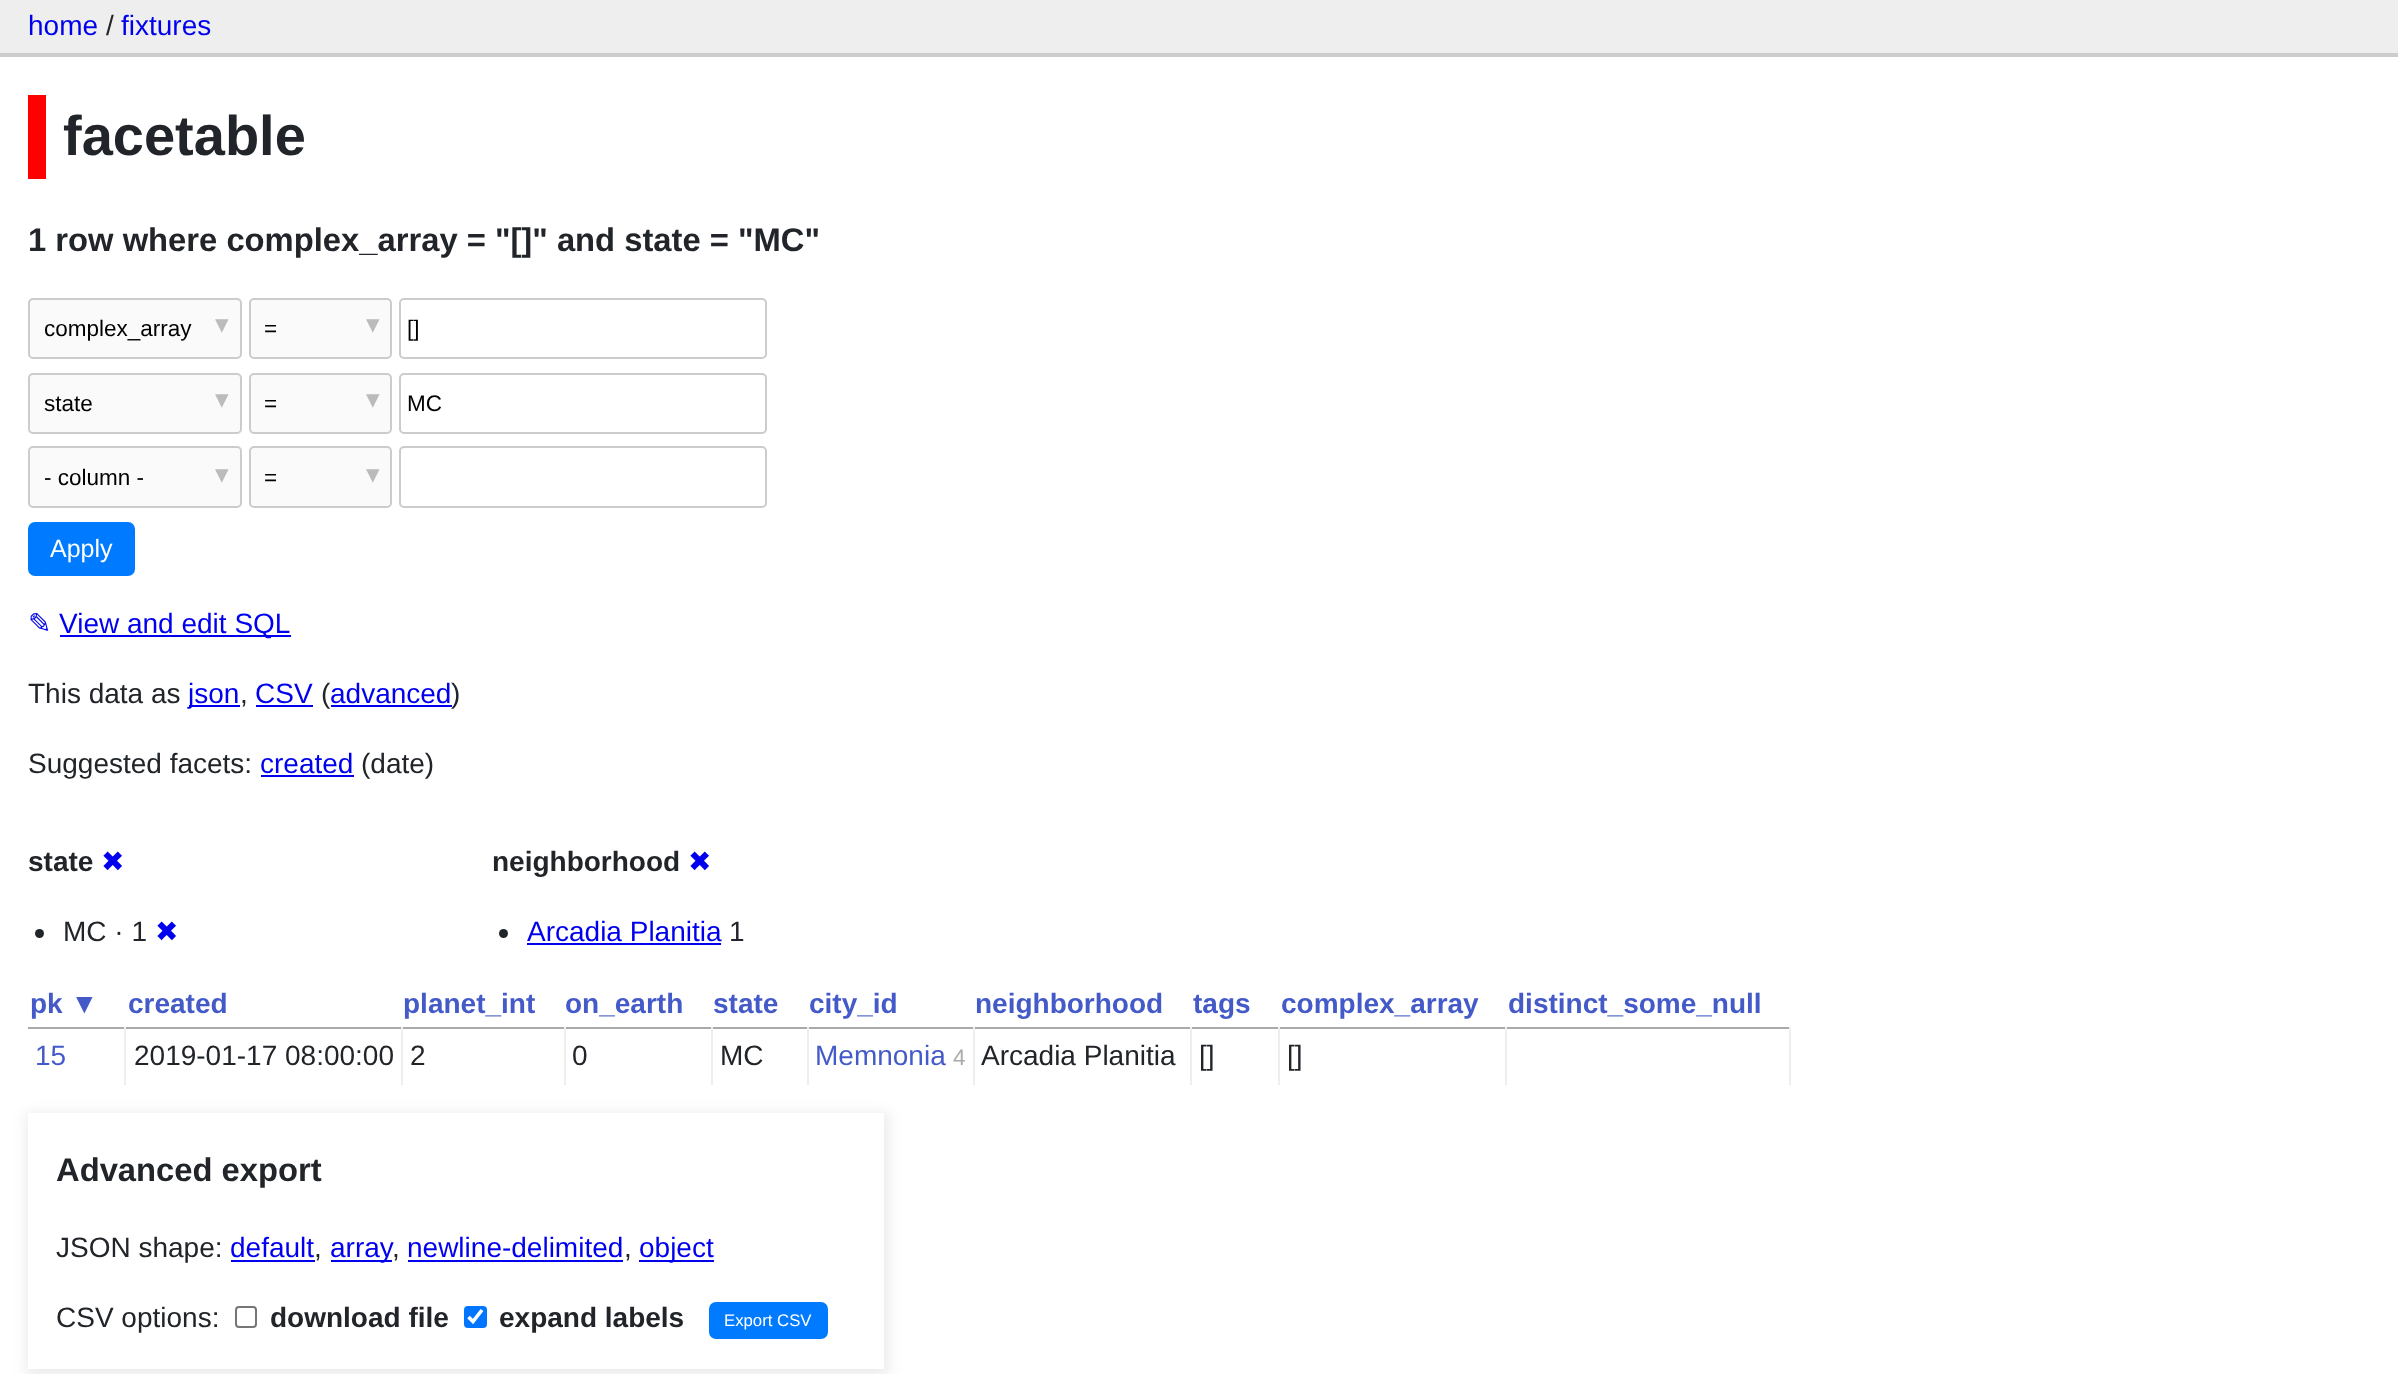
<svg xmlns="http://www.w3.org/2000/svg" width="2398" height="1374">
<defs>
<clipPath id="clip1"><path d="M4 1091h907v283h-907zm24 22h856v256h-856z" clip-rule="evenodd"/></clipPath>
</defs>
<rect width="100%" height="100%" fill="#fff"/>
<rect width="2398" height="53" fill="#eee"/>
<rect y="53" width="2398" height="4" fill="#ccc"/>
<text x="28" y="35" style="font-family:Liberation Sans;font-size:28px;fill:#00e">home</text>
<text x="106" y="35" style="font-family:Liberation Sans;font-size:28px;fill:#212529">/</text>
<text x="121" y="35" style="font-family:Liberation Sans;font-size:28px;fill:#00e">fixtures</text>
<rect x="28" y="95" width="18" height="84" fill="#f00"/>
<text x="63" y="155" style="font-family:Liberation Sans;font-size:56px;font-weight:bold;fill:#212529">facetable</text>
<text x="28" y="251" style="font-family:Liberation Sans;font-size:32.75px;font-weight:bold;fill:#212529">1 row where complex_array = "[]" and state = "MC"</text>
<rect x="29" y="299" width="212" height="59" rx="4" fill="#fafafa" stroke="#ccc" stroke-width="2"/>
<text x="44" y="336" style="font-family:Liberation Sans;font-size:22.5px;fill:#000">complex_array</text>
<text x="215" y="333" style="font-family:DejaVu Sans;font-size:27px;fill:#bbb">▾</text>
<rect x="250" y="299" width="141" height="59" rx="4" fill="#fafafa" stroke="#ccc" stroke-width="2"/>
<text x="264" y="336" style="font-family:Liberation Sans;font-size:22.5px;fill:#000">=</text>
<text x="366" y="333" style="font-family:DejaVu Sans;font-size:27px;fill:#bbb">▾</text>
<rect x="400" y="299" width="366" height="59" rx="4" fill="none" stroke="#ccc" stroke-width="2"/>
<text x="407" y="336" style="font-family:Liberation Sans;font-size:22.5px;fill:#000">[]</text>
<rect x="29" y="374" width="212" height="59" rx="4" fill="#fafafa" stroke="#ccc" stroke-width="2"/>
<text x="44" y="411" style="font-family:Liberation Sans;font-size:22.5px;fill:#000">state</text>
<text x="215" y="408" style="font-family:DejaVu Sans;font-size:27px;fill:#bbb">▾</text>
<rect x="250" y="374" width="141" height="59" rx="4" fill="#fafafa" stroke="#ccc" stroke-width="2"/>
<text x="264" y="411" style="font-family:Liberation Sans;font-size:22.5px;fill:#000">=</text>
<text x="366" y="408" style="font-family:DejaVu Sans;font-size:27px;fill:#bbb">▾</text>
<rect x="400" y="374" width="366" height="59" rx="4" fill="none" stroke="#ccc" stroke-width="2"/>
<text x="407" y="411" style="font-family:Liberation Sans;font-size:22.5px;fill:#000">MC</text>
<rect x="29" y="447" width="212" height="60" rx="4" fill="#fafafa" stroke="#ccc" stroke-width="2"/>
<text x="44" y="485" style="font-family:Liberation Sans;font-size:22.5px;fill:#000">- column -</text>
<text x="215" y="483" style="font-family:DejaVu Sans;font-size:27px;fill:#bbb">▾</text>
<rect x="250" y="447" width="141" height="60" rx="4" fill="#fafafa" stroke="#ccc" stroke-width="2"/>
<text x="264" y="485" style="font-family:Liberation Sans;font-size:22.5px;fill:#000">=</text>
<text x="366" y="483" style="font-family:DejaVu Sans;font-size:27px;fill:#bbb">▾</text>
<rect x="400" y="447" width="366" height="60" rx="4" fill="none" stroke="#ccc" stroke-width="2"/>
<rect x="29" y="523" width="105" height="52" rx="6" fill="#007bff" stroke="#007bff" stroke-width="2"/>
<text x="50" y="557" style="font-family:Liberation Sans;font-size:25px;fill:#fff">Apply</text>
<text x="28" y="633" style="font-family:DejaVu Sans;font-size:28px;fill:#00e">✎</text>
<rect x="60" y="635" width="231" height="2" fill="#00e"/>
<text x="59" y="633" style="font-family:Liberation Sans;font-size:28px;fill:#00e">View and edit SQL</text>
<text x="28" y="703" style="font-family:Liberation Sans;font-size:28px;fill:#212529">This data as</text>
<rect x="189" y="705" width="51" height="2" fill="#00e"/>
<text x="188" y="703" style="font-family:Liberation Sans;font-size:28px;fill:#00e">json</text>
<text x="240" y="703" style="font-family:Liberation Sans;font-size:28px;fill:#212529">,</text>
<text x="255" y="703" style="font-family:Liberation Sans;font-size:28px;fill:#00e">CSV</text>
<rect x="256" y="705" width="57" height="2" fill="#00e"/>
<text x="321" y="703" style="font-family:Liberation Sans;font-size:28px;fill:#212529">(</text>
<text x="330" y="703" style="font-family:Liberation Sans;font-size:28px;fill:#00e">advanced</text>
<rect x="331" y="705" width="121" height="2" fill="#00e"/>
<text x="451" y="703" style="font-family:Liberation Sans;font-size:28px;fill:#212529">)</text>
<text x="28" y="773" style="font-family:Liberation Sans;font-size:28px;fill:#212529">Suggested facets:</text>
<text x="260" y="773" style="font-family:Liberation Sans;font-size:28px;fill:#00e">created</text>
<rect x="261" y="775" width="93" height="2" fill="#00e"/>
<text x="361" y="773" style="font-family:Liberation Sans;font-size:28px;fill:#212529">(date)</text>
<text x="28" y="871" style="font-family:Liberation Sans;font-size:28px;font-weight:bold;fill:#212529">state</text>
<text x="101" y="871" style="font-family:DejaVu Sans;font-size:28px;fill:#00e">✖</text>
<circle cx="39.5" cy="933.5" r="4.5" fill="#212529"/>
<text x="63" y="941" style="font-family:Liberation Sans;font-size:28px;fill:#212529">MC · 1</text>
<text x="155" y="941" style="font-family:DejaVu Sans;font-size:28px;fill:#00e">✖</text>
<text x="492" y="871" style="font-family:Liberation Sans;font-size:28px;font-weight:bold;fill:#212529">neighborhood</text>
<text x="688" y="871" style="font-family:DejaVu Sans;font-size:28px;fill:#00e">✖</text>
<circle cx="503.5" cy="933.5" r="4.5" fill="#212529"/>
<text x="527" y="941" style="font-family:Liberation Sans;font-size:28px;fill:#00e">Arcadia Planitia</text>
<rect x="527" y="943" width="194" height="2" fill="#00e"/>
<text x="729" y="941" style="font-family:Liberation Sans;font-size:28px;fill:#212529">1</text>
<text x="30" y="1013" style="font-family:Liberation Sans;font-size:28px;font-weight:bold;fill:#445ac8">pk ▼</text>
<text x="128" y="1013" style="font-family:Liberation Sans;font-size:28px;font-weight:bold;fill:#445ac8">created</text>
<text x="403" y="1013" style="font-family:Liberation Sans;font-size:28px;font-weight:bold;fill:#445ac8">planet_int</text>
<text x="565" y="1013" style="font-family:Liberation Sans;font-size:28px;font-weight:bold;fill:#445ac8">on_earth</text>
<text x="713" y="1013" style="font-family:Liberation Sans;font-size:28px;font-weight:bold;fill:#445ac8">state</text>
<text x="809" y="1013" style="font-family:Liberation Sans;font-size:28px;font-weight:bold;fill:#445ac8">city_id</text>
<text x="975" y="1013" style="font-family:Liberation Sans;font-size:28px;font-weight:bold;fill:#445ac8">neighborhood</text>
<text x="1193" y="1013" style="font-family:Liberation Sans;font-size:28px;font-weight:bold;fill:#445ac8">tags</text>
<text x="1281" y="1013" style="font-family:Liberation Sans;font-size:28px;font-weight:bold;fill:#445ac8">complex_array</text>
<text x="1508" y="1013" style="font-family:Liberation Sans;font-size:28px;font-weight:bold;fill:#445ac8">distinct_some_null</text>
<rect x="28" y="1027" width="1762" height="2" fill="#aaa"/>
<rect x="1789" y="1027" width="2" height="58" fill="#eee"/>
<rect x="124" y="1027" width="2" height="58" fill="#eee"/>
<text x="35" y="1065" style="font-family:Liberation Sans;font-size:28px;fill:#445ac8">15</text>
<rect x="401" y="1027" width="2" height="58" fill="#eee"/>
<text x="134" y="1065" style="font-family:Liberation Sans;font-size:28px;fill:#212529">2019-01-17 08:00:00</text>
<rect x="564" y="1027" width="2" height="58" fill="#eee"/>
<text x="410" y="1065" style="font-family:Liberation Sans;font-size:28px;fill:#212529">2</text>
<rect x="711" y="1027" width="2" height="58" fill="#eee"/>
<text x="572" y="1065" style="font-family:Liberation Sans;font-size:28px;fill:#212529">0</text>
<rect x="807" y="1027" width="2" height="58" fill="#eee"/>
<text x="720" y="1065" style="font-family:Liberation Sans;font-size:28px;fill:#212529">MC</text>
<rect x="973" y="1027" width="2" height="58" fill="#eee"/>
<text x="815" y="1065" style="font-family:Liberation Sans;font-size:28px;fill:#445ac8">Memnonia</text>
<text x="953" y="1065" style="font-family:Liberation Sans;font-size:22.5px;fill:#aaa">4</text>
<rect x="1190" y="1027" width="2" height="58" fill="#eee"/>
<text x="981" y="1065" style="font-family:Liberation Sans;font-size:28px;fill:#212529">Arcadia Planitia</text>
<rect x="1278" y="1027" width="2" height="58" fill="#eee"/>
<text x="1199" y="1065" style="font-family:Liberation Sans;font-size:28px;fill:#212529">[]</text>
<rect x="1505" y="1027" width="2" height="58" fill="#eee"/>
<text x="1287" y="1065" style="font-family:Liberation Sans;font-size:28px;fill:#212529">[]</text>
<g clip-path="url(#clip1)">
<rect x="26" y="1113" width="863" height="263" fill="#00000014" filter="blur(7px)"/>
</g>
<text x="56" y="1181" style="font-family:Liberation Sans;font-size:32.75px;font-weight:bold;fill:#212529">Advanced export</text>
<text x="56" y="1257" style="font-family:Liberation Sans;font-size:28px;fill:#212529">JSON shape:</text>
<text x="230" y="1257" style="font-family:Liberation Sans;font-size:28px;fill:#00e">default</text>
<rect x="231" y="1260" width="84" height="2" fill="#00e"/>
<text x="314" y="1257" style="font-family:Liberation Sans;font-size:28px;fill:#212529">,</text>
<rect x="331" y="1260" width="61" height="2" fill="#00e"/>
<text x="330" y="1257" style="font-family:Liberation Sans;font-size:28px;fill:#00e">array</text>
<text x="392" y="1257" style="font-family:Liberation Sans;font-size:28px;fill:#212529">,</text>
<text x="407" y="1257" style="font-family:Liberation Sans;font-size:28px;fill:#00e">newline-delimited</text>
<rect x="408" y="1260" width="215" height="2" fill="#00e"/>
<text x="624" y="1257" style="font-family:Liberation Sans;font-size:28px;fill:#212529">,</text>
<rect x="639" y="1260" width="75" height="2" fill="#00e"/>
<text x="639" y="1257" style="font-family:Liberation Sans;font-size:28px;fill:#00e">object</text>
<text x="56" y="1327" style="font-family:Liberation Sans;font-size:28px;fill:#212529">CSV options:</text>
<rect x="236" y="1307" width="20" height="20" rx="3" fill="none" stroke="#767676" stroke-width="2"/>
<text x="270" y="1327" style="font-family:Liberation Sans;font-size:28px;font-weight:bold;fill:#212529">download file</text>
<rect x="464" y="1306" width="23" height="22" rx="4" fill="#0075ff"/>
<path d="M468.5 1317l4.5 4.5l9-11.5" fill="none" stroke="#fff" stroke-width="3.6"/>
<text x="499" y="1327" style="font-family:Liberation Sans;font-size:28px;font-weight:bold;fill:#212529">expand labels</text>
<rect x="710" y="1303" width="117" height="35" rx="6" fill="#007bff" stroke="#007bff" stroke-width="2"/>
<text x="724" y="1326" style="font-family:Liberation Sans;font-size:16.75px;fill:#fff">Export CSV</text>
</svg>
